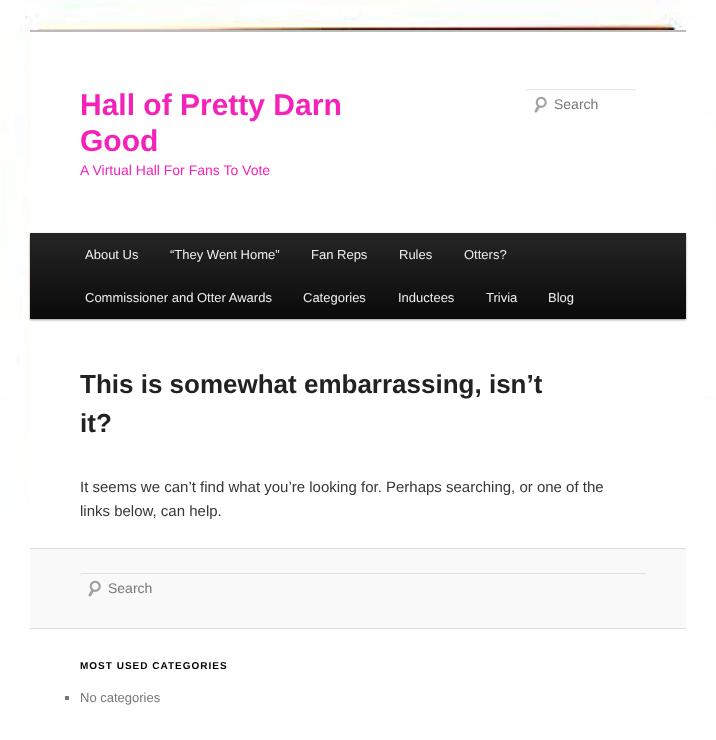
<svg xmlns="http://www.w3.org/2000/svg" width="716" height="740">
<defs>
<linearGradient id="g1" gradientUnits="userSpaceOnUse" x1="358" y1="233" x2="358" y2="319"><stop offset="0" stop-color="#252525"/><stop offset="1" stop-color="#0a0a0a"/></linearGradient>
</defs>
<rect width="100%" height="100%" fill="#fff"/>
<image x="0" y="0" width="716" height="740" href="media/1.png"/>
<rect x="30" y="32" width="656" height="708" fill="#fff"/>
<rect x="30" y="30" width="656" height="2" fill="#bbb"/>
<text x="80" y="115" style="font-family:Liberation Sans;font-size:30px;font-weight:bold;fill:#f422b9">Hall of Pretty Darn</text>
<text x="80" y="151" style="font-family:Liberation Sans;font-size:30px;font-weight:bold;fill:#f422b9">Good</text>
<text x="80" y="175" style="font-family:Liberation Sans;font-size:14px;fill:#f422b9">A Virtual Hall For Fans To Vote</text>
<image x="534" y="96" width="13" height="17" href="media/2.png"/>
<path d="M528 90h106c1 0 2 1 2 2c0-1 0-3-2-3h-106c-2 0-2 2-2 3c0-1 1-2 2-2z" fill="#e6e6e6"/>
<text x="554" y="109" style="font-family:Liberation Sans;font-size:14px;fill:#777">Search</text>
<rect x="30" y="234" width="656" height="86" fill="#00000066" filter="blur(1px)"/>
<rect x="30" y="233" width="656" height="86" fill="url(#g1)"/>
<text x="85" y="259" style="font-family:Liberation Sans;font-size:13px;fill:#eee">About Us</text>
<text x="170" y="259" style="font-family:Liberation Sans;font-size:13px;fill:#eee">“They Went Home”</text>
<text x="311" y="259" style="font-family:Liberation Sans;font-size:13px;fill:#eee">Fan Reps</text>
<text x="399" y="259" style="font-family:Liberation Sans;font-size:13px;fill:#eee">Rules</text>
<text x="464" y="259" style="font-family:Liberation Sans;font-size:13px;fill:#eee">Otters?</text>
<text x="85" y="302" style="font-family:Liberation Sans;font-size:13px;fill:#eee">Commissioner and Otter Awards</text>
<text x="303" y="302" style="font-family:Liberation Sans;font-size:13px;fill:#eee">Categories</text>
<text x="398" y="302" style="font-family:Liberation Sans;font-size:13px;fill:#eee">Inductees</text>
<text x="486" y="302" style="font-family:Liberation Sans;font-size:13px;fill:#eee">Trivia</text>
<text x="548" y="302" style="font-family:Liberation Sans;font-size:13px;fill:#eee">Blog</text>
<text x="80" y="393" style="font-family:Liberation Sans;font-size:26px;font-weight:bold;fill:#222">This is somewhat embarrassing, isn’t</text>
<text x="80" y="432" style="font-family:Liberation Sans;font-size:26px;font-weight:bold;fill:#222">it?</text>
<text x="80" y="492" style="font-family:Liberation Sans;font-size:15px;fill:#373737">It seems we can’t find what you’re looking for. Perhaps searching, or one of the</text>
<text x="80" y="516" style="font-family:Liberation Sans;font-size:15px;fill:#373737">links below, can help.</text>
<rect x="30" y="549" width="656" height="79" fill="#f9f9f9"/>
<rect x="30" y="548" width="656" height="1" fill="#ddd"/>
<rect x="30" y="628" width="656" height="1" fill="#ddd"/>
<image x="88" y="580" width="13" height="17" href="media/3.png"/>
<path d="M82 574h562c1 0 2 1 2 2c0-1 0-3-2-3h-562l-2 1v2c0-1 1-2 2-2z" fill="#e0e0e0"/>
<text x="108" y="593" style="font-family:Liberation Sans;font-size:14px;fill:#777">Search</text>
<text x="80" y="669" style="font-family:Liberation Sans;font-size:10px;font-weight:bold;letter-spacing:1px;fill:#000">MOST USED CATEGORIES</text>
<rect x="65" y="696" width="4" height="4" fill="#777"/>
<text x="80" y="702" style="font-family:Liberation Sans;font-size:13px;fill:#777">No categories</text>
</svg>
